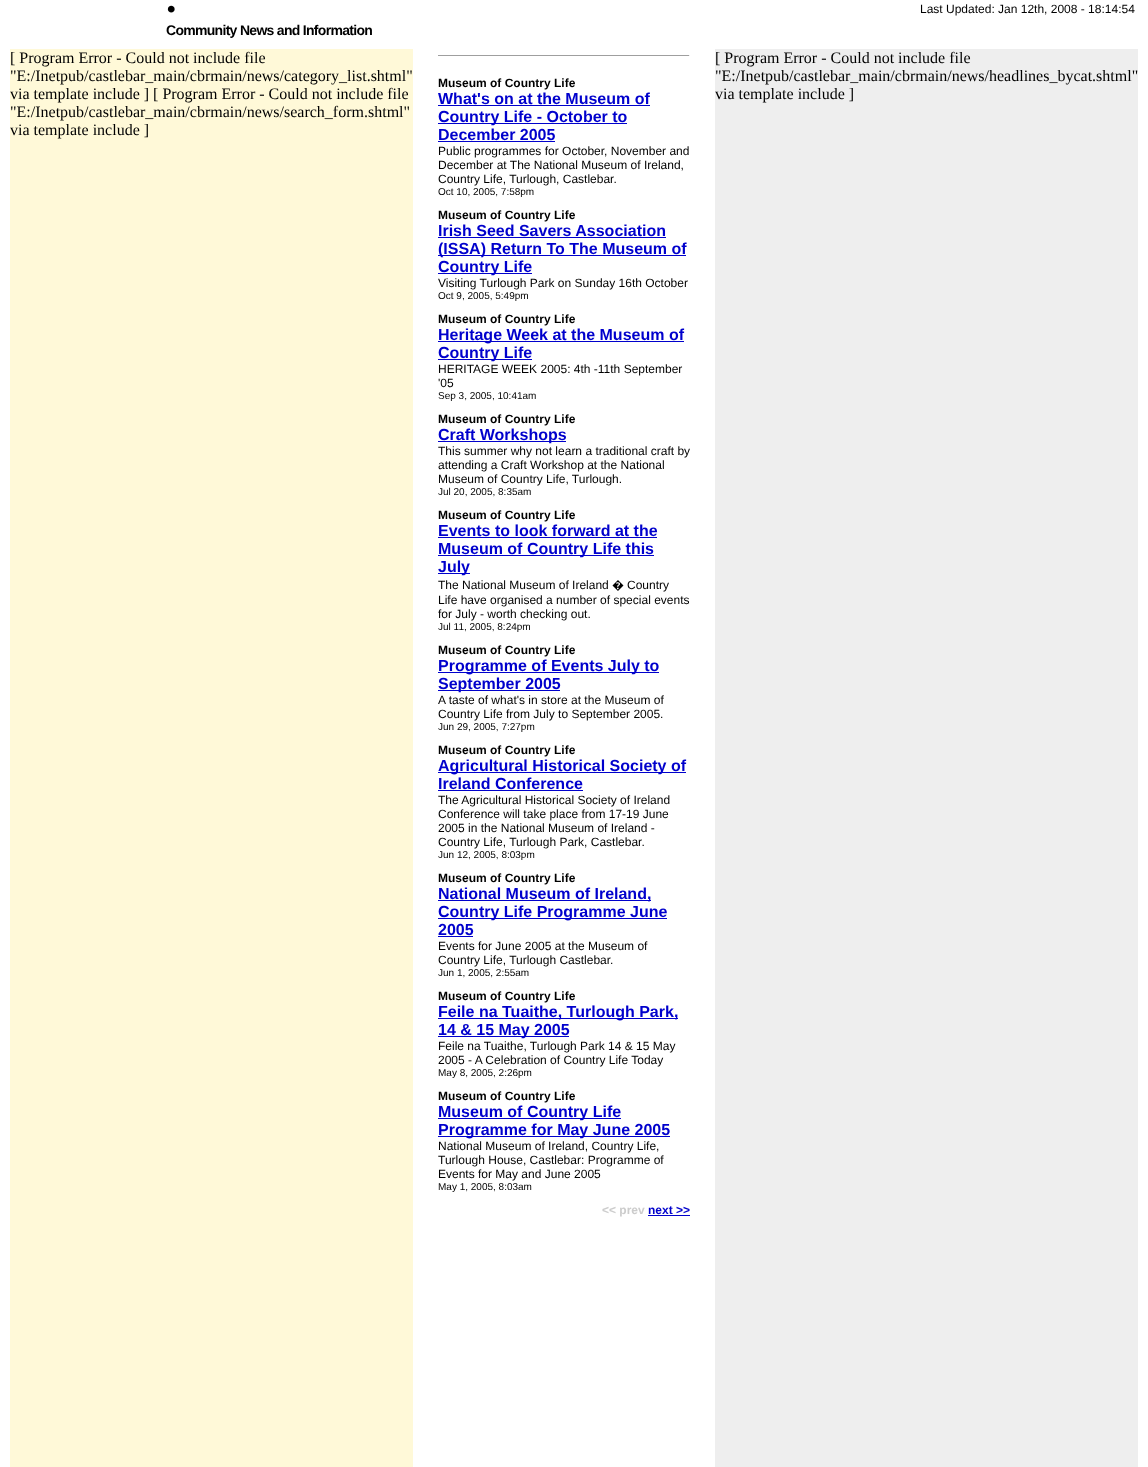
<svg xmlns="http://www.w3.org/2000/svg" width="1148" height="1467">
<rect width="100%" height="100%" fill="#fff"/>
<text x="166" y="12" style="font-family:Liberation Serif;font-size:42px;font-weight:bold;letter-spacing:-2px;fill:#000">.</text>
<text x="166" y="35" style="font-family:Liberation Sans;font-size:14px;font-weight:bold;letter-spacing:-0.7px;fill:#000">Community News and Information</text>
<text x="920" y="13" style="font-family:Liberation Sans;font-size:12px;fill:#000">Last Updated: Jan 12th, 2008 - 18:14:54</text>
<rect x="10" y="49" width="403" height="1418" fill="#fff9d8"/>
<text x="10" y="63" style="font-family:Liberation Serif;font-size:16px;fill:#000">[ Program Error - Could not include file</text>
<text x="10" y="81" style="font-family:Liberation Serif;font-size:16px;fill:#000">"E:/Inetpub/castlebar_main/cbrmain/news/category_list.shtml"</text>
<text x="10" y="99" style="font-family:Liberation Serif;font-size:16px;fill:#000">via template include ] [ Program Error - Could not include file</text>
<text x="10" y="117" style="font-family:Liberation Serif;font-size:16px;fill:#000">"E:/Inetpub/castlebar_main/cbrmain/news/search_form.shtml"</text>
<text x="10" y="135" style="font-family:Liberation Serif;font-size:16px;fill:#000">via template include ]</text>
<rect x="438" y="55" width="252" height="1" fill="#9f9f9f"/>
<rect x="689" y="55" width="1" height="1" fill="#eee"/>
<text x="438" y="87" style="font-family:Liberation Sans;font-size:12px;font-weight:bold;fill:#000">Museum of Country Life</text>
<text x="438" y="104" style="font-family:Liberation Sans;font-size:16px;font-weight:bold;fill:#00c">What's on at the Museum of</text>
<rect x="438" y="105" width="212" height="1" fill="#00c"/>
<rect x="438" y="123" width="189" height="1" fill="#00c"/>
<text x="438" y="122" style="font-family:Liberation Sans;font-size:16px;font-weight:bold;fill:#00c">Country Life - October to</text>
<text x="438" y="140" style="font-family:Liberation Sans;font-size:16px;font-weight:bold;fill:#00c">December 2005</text>
<rect x="438" y="141" width="117" height="1" fill="#00c"/>
<text x="438" y="155" style="font-family:Liberation Sans;font-size:12px;fill:#000">Public programmes for October, November and</text>
<text x="438" y="169" style="font-family:Liberation Sans;font-size:12px;fill:#000">December at The National Museum of Ireland,</text>
<text x="438" y="183" style="font-family:Liberation Sans;font-size:12px;fill:#000">Country Life, Turlough, Castlebar.</text>
<text x="438" y="195" style="font-family:Liberation Sans;font-size:10px;fill:#000">Oct 10, 2005, 7:58pm</text>
<text x="438" y="219" style="font-family:Liberation Sans;font-size:12px;font-weight:bold;fill:#000">Museum of Country Life</text>
<text x="438" y="236" style="font-family:Liberation Sans;font-size:16px;font-weight:bold;fill:#00c">Irish Seed Savers Association</text>
<rect x="438" y="237" width="228" height="1" fill="#00c"/>
<rect x="438" y="255" width="248" height="1" fill="#00c"/>
<text x="438" y="254" style="font-family:Liberation Sans;font-size:16px;font-weight:bold;fill:#00c">(ISSA) Return To The Museum of</text>
<rect x="438" y="273" width="94" height="1" fill="#00c"/>
<text x="438" y="272" style="font-family:Liberation Sans;font-size:16px;font-weight:bold;fill:#00c">Country Life</text>
<text x="438" y="287" style="font-family:Liberation Sans;font-size:12px;fill:#000">Visiting Turlough Park on Sunday 16th October</text>
<text x="438" y="299" style="font-family:Liberation Sans;font-size:10px;fill:#000">Oct 9, 2005, 5:49pm</text>
<text x="438" y="323" style="font-family:Liberation Sans;font-size:12px;font-weight:bold;fill:#000">Museum of Country Life</text>
<rect x="438" y="341" width="246" height="1" fill="#00c"/>
<text x="438" y="340" style="font-family:Liberation Sans;font-size:16px;font-weight:bold;fill:#00c">Heritage Week at the Museum of</text>
<rect x="438" y="359" width="94" height="1" fill="#00c"/>
<text x="438" y="358" style="font-family:Liberation Sans;font-size:16px;font-weight:bold;fill:#00c">Country Life</text>
<text x="438" y="373" style="font-family:Liberation Sans;font-size:12px;fill:#000">HERITAGE WEEK 2005: 4th -11th September</text>
<text x="438" y="387" style="font-family:Liberation Sans;font-size:12px;fill:#000">'05</text>
<text x="438" y="399" style="font-family:Liberation Sans;font-size:10px;fill:#000">Sep 3, 2005, 10:41am</text>
<text x="438" y="423" style="font-family:Liberation Sans;font-size:12px;font-weight:bold;fill:#000">Museum of Country Life</text>
<rect x="438" y="441" width="128" height="1" fill="#00c"/>
<text x="438" y="440" style="font-family:Liberation Sans;font-size:16px;font-weight:bold;fill:#00c">Craft Workshops</text>
<text x="438" y="455" style="font-family:Liberation Sans;font-size:12px;fill:#000">This summer why not learn a traditional craft by</text>
<text x="438" y="469" style="font-family:Liberation Sans;font-size:12px;fill:#000">attending a Craft Workshop at the National</text>
<text x="438" y="483" style="font-family:Liberation Sans;font-size:12px;fill:#000">Museum of Country Life, Turlough.</text>
<text x="438" y="495" style="font-family:Liberation Sans;font-size:10px;fill:#000">Jul 20, 2005, 8:35am</text>
<text x="438" y="519" style="font-family:Liberation Sans;font-size:12px;font-weight:bold;fill:#000">Museum of Country Life</text>
<text x="438" y="536" style="font-family:Liberation Sans;font-size:16px;font-weight:bold;fill:#00c">Events to look forward at the</text>
<rect x="438" y="537" width="219" height="1" fill="#00c"/>
<rect x="438" y="555" width="216" height="1" fill="#00c"/>
<text x="438" y="554" style="font-family:Liberation Sans;font-size:16px;font-weight:bold;fill:#00c">Museum of Country Life this</text>
<rect x="438" y="573" width="32" height="1" fill="#00c"/>
<text x="438" y="572" style="font-family:Liberation Sans;font-size:16px;font-weight:bold;fill:#00c">July</text>
<text x="438" y="589" style="font-family:Liberation Sans;font-size:12px;fill:#000">The National Museum of Ireland</text>
<text x="612" y="589" style="font-family:Noto Sans;font-size:12px;fill:#000">�</text>
<text x="627" y="589" style="font-family:Liberation Sans;font-size:12px;fill:#000">Country</text>
<text x="438" y="604" style="font-family:Liberation Sans;font-size:12px;fill:#000">Life have organised a number of special events</text>
<text x="438" y="618" style="font-family:Liberation Sans;font-size:12px;fill:#000">for July - worth checking out.</text>
<text x="438" y="630" style="font-family:Liberation Sans;font-size:10px;fill:#000">Jul 11, 2005, 8:24pm</text>
<text x="438" y="654" style="font-family:Liberation Sans;font-size:12px;font-weight:bold;fill:#000">Museum of Country Life</text>
<rect x="438" y="672" width="221" height="1" fill="#00c"/>
<text x="438" y="671" style="font-family:Liberation Sans;font-size:16px;font-weight:bold;fill:#00c">Programme of Events July to</text>
<rect x="438" y="690" width="122" height="1" fill="#00c"/>
<text x="438" y="689" style="font-family:Liberation Sans;font-size:16px;font-weight:bold;fill:#00c">September 2005</text>
<text x="438" y="704" style="font-family:Liberation Sans;font-size:12px;fill:#000">A taste of what's in store at the Museum of</text>
<text x="438" y="718" style="font-family:Liberation Sans;font-size:12px;fill:#000">Country Life from July to September 2005.</text>
<text x="438" y="730" style="font-family:Liberation Sans;font-size:10px;fill:#000">Jun 29, 2005, 7:27pm</text>
<text x="438" y="754" style="font-family:Liberation Sans;font-size:12px;font-weight:bold;fill:#000">Museum of Country Life</text>
<rect x="438" y="772" width="248" height="1" fill="#00c"/>
<text x="438" y="771" style="font-family:Liberation Sans;font-size:16px;font-weight:bold;fill:#00c">Agricultural Historical Society of</text>
<text x="438" y="789" style="font-family:Liberation Sans;font-size:16px;font-weight:bold;fill:#00c">Ireland Conference</text>
<rect x="438" y="790" width="145" height="1" fill="#00c"/>
<text x="438" y="804" style="font-family:Liberation Sans;font-size:12px;fill:#000">The Agricultural Historical Society of Ireland</text>
<text x="438" y="818" style="font-family:Liberation Sans;font-size:12px;fill:#000">Conference will take place from 17-19 June</text>
<text x="438" y="832" style="font-family:Liberation Sans;font-size:12px;fill:#000">2005 in the National Museum of Ireland -</text>
<text x="438" y="846" style="font-family:Liberation Sans;font-size:12px;fill:#000">Country Life, Turlough Park, Castlebar.</text>
<text x="438" y="858" style="font-family:Liberation Sans;font-size:10px;fill:#000">Jun 12, 2005, 8:03pm</text>
<text x="438" y="882" style="font-family:Liberation Sans;font-size:12px;font-weight:bold;fill:#000">Museum of Country Life</text>
<rect x="438" y="900" width="213" height="1" fill="#00c"/>
<text x="438" y="899" style="font-family:Liberation Sans;font-size:16px;font-weight:bold;fill:#00c">National Museum of Ireland,</text>
<rect x="438" y="918" width="229" height="1" fill="#00c"/>
<text x="438" y="917" style="font-family:Liberation Sans;font-size:16px;font-weight:bold;fill:#00c">Country Life Programme June</text>
<text x="438" y="935" style="font-family:Liberation Sans;font-size:16px;font-weight:bold;fill:#00c">2005</text>
<rect x="438" y="936" width="35" height="1" fill="#00c"/>
<text x="438" y="950" style="font-family:Liberation Sans;font-size:12px;fill:#000">Events for June 2005 at the Museum of</text>
<text x="438" y="964" style="font-family:Liberation Sans;font-size:12px;fill:#000">Country Life, Turlough Castlebar.</text>
<text x="438" y="976" style="font-family:Liberation Sans;font-size:10px;fill:#000">Jun 1, 2005, 2:55am</text>
<text x="438" y="1000" style="font-family:Liberation Sans;font-size:12px;font-weight:bold;fill:#000">Museum of Country Life</text>
<rect x="438" y="1018" width="240" height="1" fill="#00c"/>
<text x="438" y="1017" style="font-family:Liberation Sans;font-size:16px;font-weight:bold;fill:#00c">Feile na Tuaithe, Turlough Park,</text>
<rect x="438" y="1036" width="131" height="1" fill="#00c"/>
<text x="438" y="1035" style="font-family:Liberation Sans;font-size:16px;font-weight:bold;fill:#00c">14 &amp; 15 May 2005</text>
<text x="438" y="1050" style="font-family:Liberation Sans;font-size:12px;fill:#000">Feile na Tuaithe, Turlough Park 14 &amp; 15 May</text>
<text x="438" y="1064" style="font-family:Liberation Sans;font-size:12px;fill:#000">2005 - A Celebration of Country Life Today</text>
<text x="438" y="1076" style="font-family:Liberation Sans;font-size:10px;fill:#000">May 8, 2005, 2:26pm</text>
<text x="438" y="1100" style="font-family:Liberation Sans;font-size:12px;font-weight:bold;fill:#000">Museum of Country Life</text>
<rect x="438" y="1118" width="183" height="1" fill="#00c"/>
<text x="438" y="1117" style="font-family:Liberation Sans;font-size:16px;font-weight:bold;fill:#00c">Museum of Country Life</text>
<rect x="438" y="1136" width="232" height="1" fill="#00c"/>
<text x="438" y="1135" style="font-family:Liberation Sans;font-size:16px;font-weight:bold;fill:#00c">Programme for May June 2005</text>
<text x="438" y="1150" style="font-family:Liberation Sans;font-size:12px;fill:#000">National Museum of Ireland, Country Life,</text>
<text x="438" y="1164" style="font-family:Liberation Sans;font-size:12px;fill:#000">Turlough House, Castlebar: Programme of</text>
<text x="438" y="1178" style="font-family:Liberation Sans;font-size:12px;fill:#000">Events for May and June 2005</text>
<text x="438" y="1190" style="font-family:Liberation Sans;font-size:10px;fill:#000">May 1, 2005, 8:03am</text>
<text x="602" y="1214" style="font-family:Liberation Sans;font-size:12px;font-weight:bold;fill:#ccc">&lt;&lt; prev</text>
<text x="648" y="1214" style="font-family:Liberation Sans;font-size:12px;font-weight:bold;fill:#00c">next &gt;&gt;</text>
<rect x="648" y="1215" width="42" height="1" fill="#00c"/>
<rect x="715" y="49" width="423" height="1418" fill="#eee"/>
<text x="715" y="63" style="font-family:Liberation Serif;font-size:16px;fill:#000">[ Program Error - Could not include file</text>
<text x="715" y="81" style="font-family:Liberation Serif;font-size:16px;fill:#000">"E:/Inetpub/castlebar_main/cbrmain/news/headlines_bycat.shtml"</text>
<text x="715" y="99" style="font-family:Liberation Serif;font-size:16px;fill:#000">via template include ]</text>
</svg>
